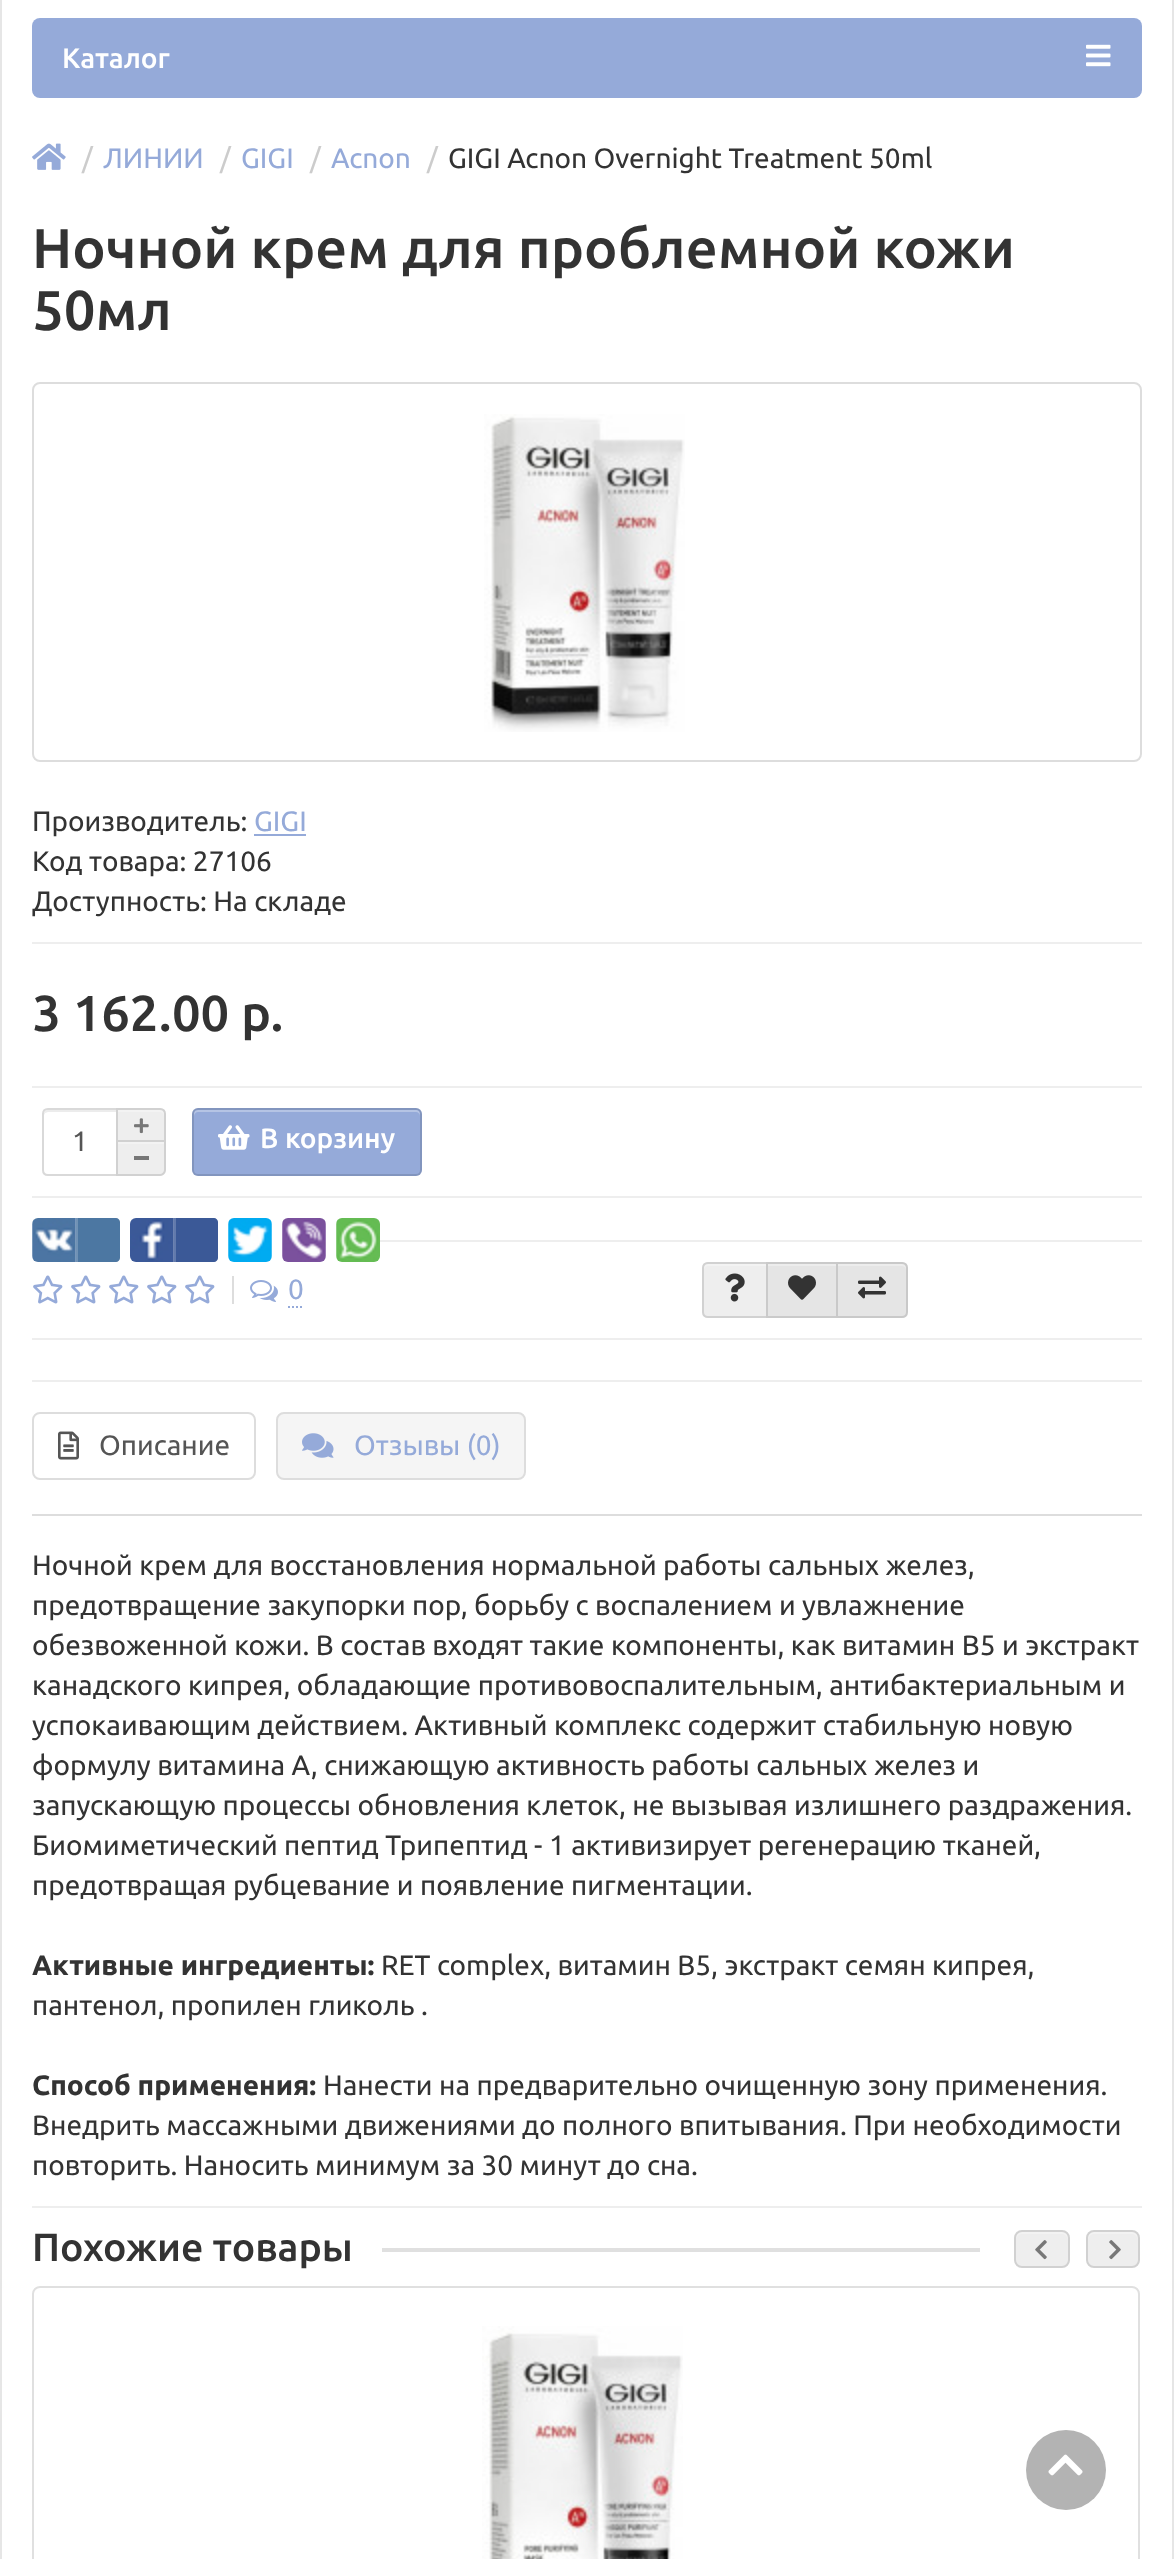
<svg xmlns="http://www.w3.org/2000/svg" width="1174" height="2559">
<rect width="100%" height="100%" fill="#fff"/>
<rect x="1172" width="2" height="138" fill="#e6e6e6"/>
<rect width="2" height="138" fill="#e6e6e6"/>
<rect x="32" y="18" width="1110" height="80" rx="8" fill="#95aad9"/>
<text x="62" y="68" style="font-family:Ubuntu;font-size:28px;font-weight:500;fill:#fff">Каталог</text>
<image x="1086" y="44" width="25" height="23" href="media/1.png"/>
<rect x="1172" y="138" width="2" height="2421" fill="#e6e6e6"/>
<rect y="138" width="2" height="2421" fill="#e6e6e6"/>
<image x="32" y="143" width="34" height="27" href="media/2.png"/>
<text x="82" y="168" style="font-family:Ubuntu;font-size:28px;fill:#ccc">/</text>
<text x="103" y="168" style="font-family:Ubuntu;font-size:28px;fill:#95aad9">ЛИНИИ</text>
<text x="220" y="168" style="font-family:Ubuntu;font-size:28px;fill:#ccc">/</text>
<text x="241" y="168" style="font-family:Ubuntu;font-size:28px;fill:#95aad9">GIGI</text>
<text x="310" y="168" style="font-family:Ubuntu;font-size:28px;fill:#ccc">/</text>
<text x="331" y="168" style="font-family:Ubuntu;font-size:28px;fill:#95aad9">Acnon</text>
<text x="427" y="168" style="font-family:Ubuntu;font-size:28px;fill:#ccc">/</text>
<text x="448" y="168" style="font-family:Ubuntu;font-size:28px;fill:#333">GIGI Acnon Overnight Treatment 50ml</text>
<text x="32" y="268" style="font-family:Ubuntu;font-size:56px;font-weight:500;fill:#333">Ночной крем для проблемной кожи</text>
<text x="32" y="330" style="font-family:Ubuntu;font-size:56px;font-weight:500;fill:#333">50мл</text>
<rect x="33" y="383" width="1108" height="378" rx="7" fill="none" stroke="#ddd" stroke-width="2"/>
<image x="484" y="414" width="201" height="318" href="media/3.png"/>
<text x="32" y="831" style="font-family:Ubuntu;font-size:28px;fill:#333">Производитель:</text>
<text x="254" y="831" style="font-family:Ubuntu;font-size:28px;fill:#95aad9">GIGI</text>
<rect x="254" y="834" width="52" height="2" fill="#95aad9"/>
<text x="32" y="871" style="font-family:Ubuntu;font-size:28px;fill:#333">Код товара: 27106</text>
<text x="32" y="911" style="font-family:Ubuntu;font-size:28px;fill:#333">Доступность: На складе</text>
<rect x="32" y="942" width="1110" height="2" fill="#eee"/>
<text x="32" y="1031" style="font-family:Ubuntu;font-size:50.5px;font-weight:500;fill:#333">3 162.00 р.</text>
<rect x="32" y="1086" width="1110" height="2" fill="#eee"/>
<path d="M48 1112h68v-2h-68c-2 0-4 2-4 4v1l1-2z" fill="#ececec"/>
<path d="M48 1109h69v66h-69c-3 0-5-2-5-5v-56c0-3 2-5 5-5z" fill="none" stroke="#d9d9d9" stroke-width="2"/>
<text x="72" y="1151" style="font-family:Ubuntu;font-size:28px;fill:#555">1</text>
<path d="M116 1108h44c3.5 0 6 2.5 6 6v28h-50z" fill="#eee"/>
<path d="M118 1112h42c2 0 4 2 4 4v-2c0-2-2-4-4-4h-42z" fill="#f3f3f3"/>
<path d="M117 1109h43c3 0 5 2 5 5v27h-48z" fill="none" stroke="#0000001f" stroke-width="2"/>
<image x="134" y="1118" width="15" height="16" href="media/4.png"/>
<path d="M116 1142h50v28c0 3.5-2.5 6-6 6h-44z" fill="#eee"/>
<rect x="118" y="1142" width="46" height="2" fill="#f3f3f3"/>
<path d="M116 1142h50v28c0 3-3 6-6 6h-44zm2 0h46v28c0 2-2 4-4 4h-42z" fill="#0000001f" fill-rule="evenodd"/>
<rect x="134" y="1156" width="15" height="4" fill="#777"/>
<rect x="192" y="1108" width="230" height="68" rx="6" fill="#95aad9"/>
<path d="M198 1112h218c2 0 4 2 4 4c0-3 0-5-3-6h-219c-4 0-4 3-4 6c0-2 2-4 4-4z" fill="#b5c4e4"/>
<rect x="193" y="1109" width="228" height="66" rx="5" fill="none" stroke="#0000001f" stroke-width="2"/>
<image x="218" y="1125" width="32" height="25" href="media/5.png"/>
<text x="260" y="1148" style="font-family:Ubuntu;font-size:28px;font-weight:500;fill:#fff">В корзину</text>
<rect x="32" y="1196" width="1110" height="2" fill="#eee"/>
<image x="32" y="1218" width="88" height="44" href="media/6.png"/>
<path d="M76 1218h40c2 0 4 2 4 4v36c0 2-2 4-4 4h-40z" fill="#4c77a2"/>
<rect x="76" y="1218" width="2" height="44" fill="#7092b5"/>
<image x="130" y="1218" width="88" height="44" href="media/7.png"/>
<path d="M174 1218h40c2 0 4 2 4 4v36c0 2-2 4-4 4h-40z" fill="#3b5997"/>
<rect x="174" y="1218" width="2" height="44" fill="#627aac"/>
<image x="228" y="1218" width="44" height="44" href="media/8.png"/>
<image x="282" y="1218" width="44" height="44" href="media/9.png"/>
<image x="336" y="1218" width="44" height="44" href="media/10.png"/>
<rect x="380" y="1240" width="762" height="2" fill="#eee"/>
<image x="33" y="1275" width="30" height="29" href="media/11.png"/>
<image x="71" y="1275" width="30" height="29" href="media/11.png"/>
<image x="109" y="1275" width="30" height="29" href="media/11.png"/>
<image x="147" y="1275" width="30" height="29" href="media/11.png"/>
<image x="185" y="1275" width="30" height="29" href="media/11.png"/>
<rect x="232" y="1276" width="2" height="28" fill="#ddd"/>
<image x="250" y="1280" width="28" height="22" href="media/12.png"/>
<path d="M288 1307h16" fill="none" stroke="#95aad9" stroke-width="2" stroke-dasharray="2 2"/>
<text x="288" y="1299" style="font-family:Ubuntu;font-size:28px;fill:#95aad9">0</text>
<path d="M708 1262h60v56h-60c-3.5 0-6-2.5-6-6v-44c0-3.5 2.5-6 6-6z" fill="#eee"/>
<path d="M708 1266h58v-2h-58c-2 0-4 2-4 4v2c0-2 2-4 4-4z" fill="#f3f3f3"/>
<path d="M708 1263h59v54h-59c-3 0-5-2-5-5v-44c0-3 2-5 5-5z" fill="none" stroke="#0000001f" stroke-width="2"/>
<image x="725" y="1273" width="20" height="29" href="media/13.png"/>
<rect x="768" y="1266" width="68" height="50" fill="#e5e5e5"/>
<rect x="768" y="1264" width="68" height="2" fill="#ededed"/>
<rect x="767" y="1263" width="70" height="54" fill="none" stroke="#cacaca" stroke-width="2"/>
<image x="788" y="1275" width="28" height="25" href="media/14.png"/>
<path d="M836 1262h66c3.5 0 6 2.5 6 6v44c0 3.5-2.5 6-6 6h-66z" fill="#e5e5e5"/>
<path d="M838 1266h64c2 0 4 2 4 4v-2c0-2-2-4-4-4h-64z" fill="#ededed"/>
<path d="M837 1263h65c3 0 5 2 5 5v44c0 3-2 5-5 5h-65z" fill="none" stroke="#0000001f" stroke-width="2"/>
<image x="858" y="1276" width="28" height="23" href="media/15.png"/>
<rect x="32" y="1338" width="1110" height="2" fill="#eee"/>
<rect x="32" y="1380" width="1110" height="2" fill="#eee"/>
<rect x="32" y="1514" width="1110" height="2" fill="#ddd"/>
<rect x="33" y="1413" width="222" height="66" rx="7" fill="none" stroke="#ddd" stroke-width="2"/>
<image x="58" y="1431" width="21" height="29" href="media/16.png"/>
<text x="99" y="1455" style="font-family:Ubuntu;font-size:28px;fill:#555">Описание</text>
<rect x="277" y="1413" width="248" height="66" rx="7" fill="#f5f5f5" stroke="#ddd" stroke-width="2"/>
<image x="302" y="1433" width="32" height="25" href="media/17.png"/>
<text x="354" y="1455" style="font-family:Ubuntu;font-size:28px;fill:#95aad9">Отзывы (0)</text>
<text x="32" y="1575" style="font-family:Ubuntu;font-size:28px;fill:#333">Ночной крем для восстановления нормальной работы сальных желез,</text>
<text x="32" y="1615" style="font-family:Ubuntu;font-size:28px;fill:#333">предотвращение закупорки пор, борьбу с воспалением и увлажнение</text>
<text x="32" y="1655" style="font-family:Ubuntu;font-size:28px;fill:#333">обезвоженной кожи. В состав входят такие компоненты, как витамин В5 и экстракт</text>
<text x="32" y="1695" style="font-family:Ubuntu;font-size:28px;fill:#333">канадского кипрея, обладающие противовоспалительным, антибактериальным и</text>
<text x="32" y="1735" style="font-family:Ubuntu;font-size:28px;fill:#333">успокаивающим действием. Активный комплекс содержит стабильную новую</text>
<text x="32" y="1775" style="font-family:Ubuntu;font-size:28px;fill:#333">формулу витамина А, снижающую активность работы сальных желез и</text>
<text x="32" y="1815" style="font-family:Ubuntu;font-size:28px;fill:#333">запускающую процессы обновления клеток, не вызывая излишнего раздражения.</text>
<text x="32" y="1855" style="font-family:Ubuntu;font-size:28px;fill:#333">Биомиметический пептид Трипептид - 1 активизирует регенерацию тканей,</text>
<text x="32" y="1895" style="font-family:Ubuntu;font-size:28px;fill:#333">предотвращая рубцевание и появление пигментации.</text>
<text x="32" y="1975" style="font-family:Ubuntu;font-size:28px;font-weight:bold;fill:#333">Активные ингредиенты:</text>
<text x="381" y="1975" style="font-family:Ubuntu;font-size:28px;fill:#333">RET complex, витамин В5, экстракт семян кипрея,</text>
<text x="32" y="2015" style="font-family:Ubuntu;font-size:28px;fill:#333">пантенол, пропилен гликоль .</text>
<text x="32" y="2095" style="font-family:Ubuntu;font-size:28px;font-weight:bold;fill:#333">Способ применения:</text>
<text x="323" y="2095" style="font-family:Ubuntu;font-size:28px;fill:#333">Нанести на предварительно очищенную зону применения.</text>
<text x="32" y="2135" style="font-family:Ubuntu;font-size:28px;fill:#333">Внедрить массажными движениями до полного впитывания. При необходимости</text>
<text x="32" y="2175" style="font-family:Ubuntu;font-size:28px;fill:#333">повторить. Наносить минимум за 30 минут до сна.</text>
<rect x="32" y="2206" width="1110" height="2" fill="#eee"/>
<rect x="1014" y="2230" width="56" height="38" rx="8" fill="#eee"/>
<path d="M1022 2234h40c3 0 6 3 6 6c0-9-5-8-13-8h-26c-8 0-13-1-13 8c0-3 3-6 6-6z" fill="#f3f3f3"/>
<rect x="1015" y="2231" width="54" height="36" rx="7" fill="none" stroke="#0000001f" stroke-width="2"/>
<image x="1035" y="2240" width="12" height="20" href="media/18.png"/>
<rect x="1086" y="2230" width="54" height="38" rx="8" fill="#eee"/>
<path d="M1094 2234h38c3 0 6 3 6 6c0-9-5-8-12-8h-26c-7 0-12-1-12 8c0-3 3-6 6-6z" fill="#f3f3f3"/>
<rect x="1087" y="2231" width="52" height="36" rx="7" fill="none" stroke="#0000001f" stroke-width="2"/>
<image x="1109" y="2240" width="12" height="20" href="media/19.png"/>
<rect x="33" y="2287" width="1106" height="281" rx="7" fill="none" stroke="#e0e0e0" stroke-width="2"/>
<image x="482" y="2326" width="201" height="233" href="media/20.png"/>
<text x="32" y="2261" style="font-family:Ubuntu;font-size:39.25px;font-weight:500;fill:#333">Похожие товары</text>
<rect x="382" y="2248" width="598" height="4" fill="#e0e0e0"/>
<circle cx="1066" cy="2470" r="40" fill="#b3b3b3"/>
<image x="1048" y="2454" width="35" height="22" href="media/21.png"/>
</svg>
